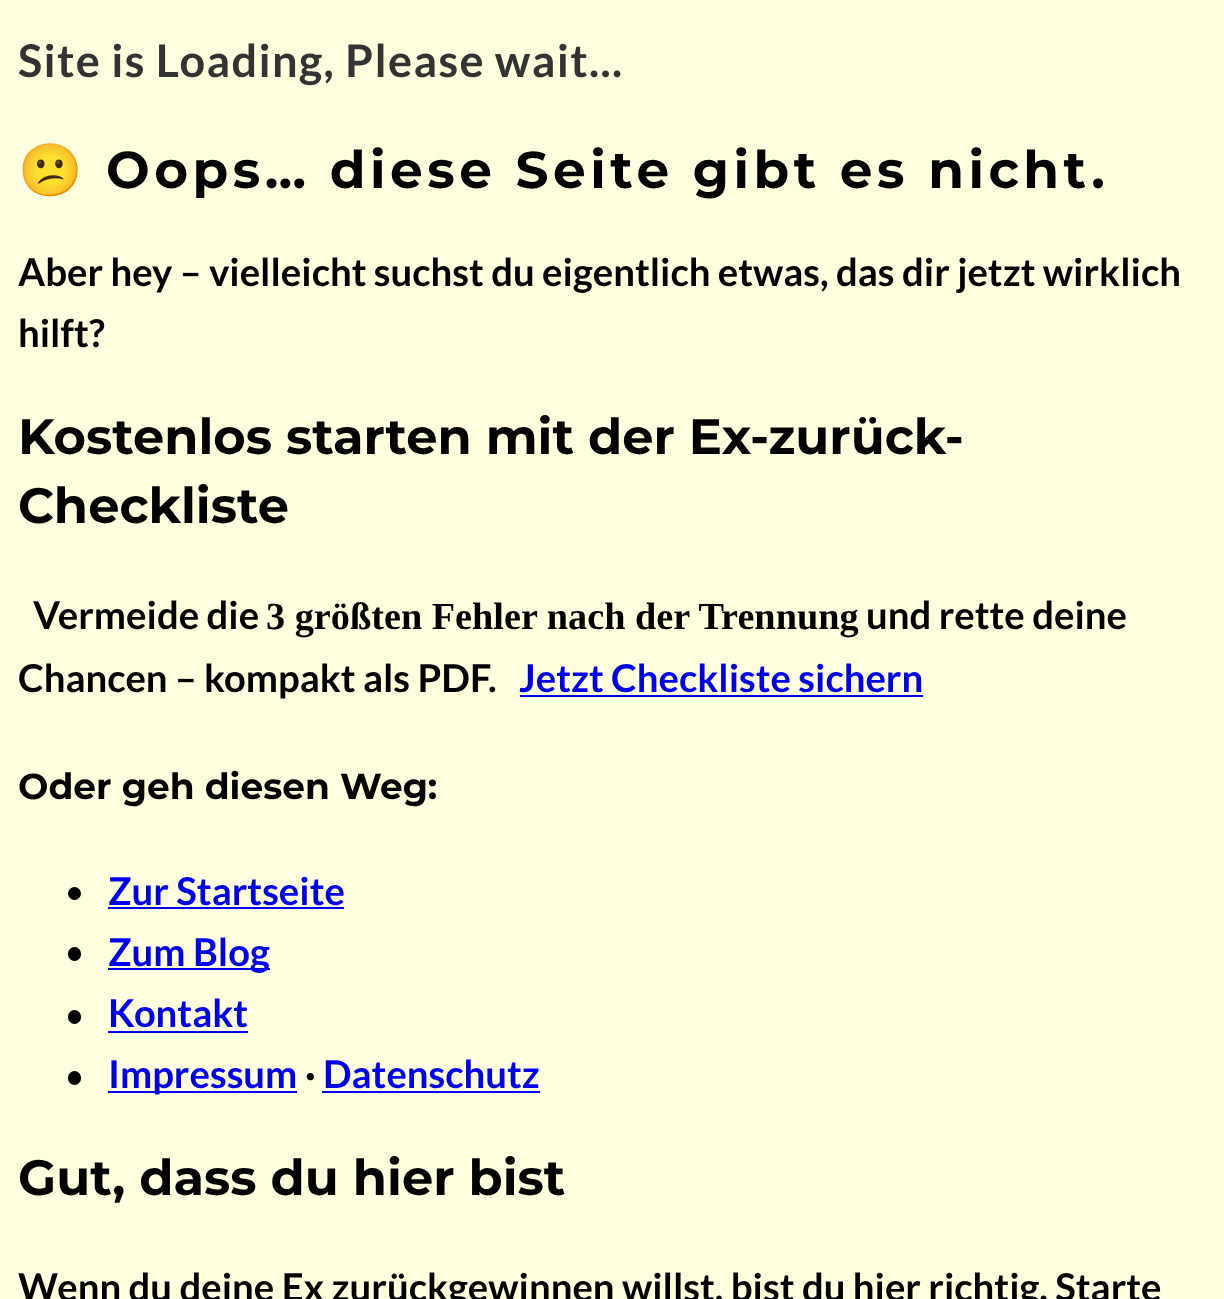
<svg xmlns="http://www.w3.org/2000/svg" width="1224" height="1299">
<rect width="100%" height="100%" fill="#ffffe0"/>
<text x="18" y="77" style="font-family:Lato;font-size:45px;font-weight:bold;letter-spacing:1.35px;fill:#333">Site is Loading, Please wait...</text>
<text x="18" y="188" style="font-family:Noto Color Emoji;font-size:51.75px;font-weight:bold;letter-spacing:4.5px;fill:#000">😕</text>
<text x="106" y="188" style="font-family:Montserrat;font-size:51.75px;font-weight:bold;letter-spacing:4.5px;fill:#000">Oops… diese Seite gibt es nicht.</text>
<text x="18" y="286" style="font-family:Lato;font-size:38.25px;font-weight:bold;fill:#000">Aber hey – vielleicht suchst du eigentlich etwas, das dir jetzt wirklich</text>
<text x="18" y="347" style="font-family:Lato;font-size:38.25px;font-weight:bold;fill:#000">hilft?</text>
<text x="18" y="454" style="font-family:Montserrat;font-size:49.5px;font-weight:bold;fill:#000">Kostenlos starten mit der Ex-zurück-</text>
<text x="18" y="523" style="font-family:Montserrat;font-size:49.5px;font-weight:bold;fill:#000">Checkliste</text>
<text x="33" y="629" style="font-family:Lato;font-size:38.25px;font-weight:bold;fill:#000">Vermeide die</text>
<text x="266" y="629" style="font-family:Liberation Serif;font-size:38.25px;font-weight:bold;fill:#000">3 größten Fehler nach der Trennung</text>
<text x="866" y="629" style="font-family:Lato;font-size:38.25px;font-weight:bold;fill:#000">und rette deine</text>
<text x="18" y="692" style="font-family:Lato;font-size:38.25px;font-weight:bold;fill:#000">Chancen – kompakt als PDF.</text>
<text x="519" y="692" style="font-family:Lato;font-size:38.25px;font-weight:bold;fill:#00e">Jetzt Checkliste sichern</text>
<rect x="520" y="695" width="403" height="2" fill="#00e"/>
<text x="18" y="799" style="font-family:Montserrat;font-size:36px;font-weight:bold;fill:#000">Oder geh diesen Weg:</text>
<circle cx="74.5" cy="893.5" r="6.5" fill="#000"/>
<text x="108" y="905" style="font-family:Lato;font-size:38.25px;font-weight:bold;fill:#00e">Zur Startseite</text>
<rect x="108" y="907" width="236" height="2" fill="#00e"/>
<rect x="68" y="947" width="13" height="14" rx="6.5" fill="#000"/>
<rect x="108" y="968" width="162" height="2" fill="#00e"/>
<text x="108" y="966" style="font-family:Lato;font-size:38.25px;font-weight:bold;fill:#00e">Zum Blog</text>
<rect x="68" y="1010" width="13" height="14" rx="6.5" fill="#000"/>
<text x="108" y="1027" style="font-family:Lato;font-size:38.25px;font-weight:bold;fill:#00e">Kontakt</text>
<rect x="108" y="1031" width="140" height="2" fill="#00e"/>
<rect x="68" y="1071" width="13" height="14" rx="6.5" fill="#000"/>
<rect x="108" y="1091" width="189" height="2" fill="#00e"/>
<text x="108" y="1088" style="font-family:Lato;font-size:38.25px;font-weight:bold;fill:#00e">Impressum</text>
<text x="305" y="1088" style="font-family:Lato;font-size:38.25px;font-weight:bold;fill:#000">·</text>
<text x="323" y="1088" style="font-family:Lato;font-size:38.25px;font-weight:bold;fill:#00e">Datenschutz</text>
<rect x="322" y="1091" width="218" height="2" fill="#00e"/>
<text x="18" y="1195" style="font-family:Montserrat;font-size:49.5px;font-weight:bold;fill:#000">Gut, dass du hier bist</text>
<text x="18" y="1301" style="font-family:Lato;font-size:38.25px;font-weight:bold;fill:#000">Wenn du deine Ex zurückgewinnen willst, bist du hier richtig. Starte</text>
</svg>
